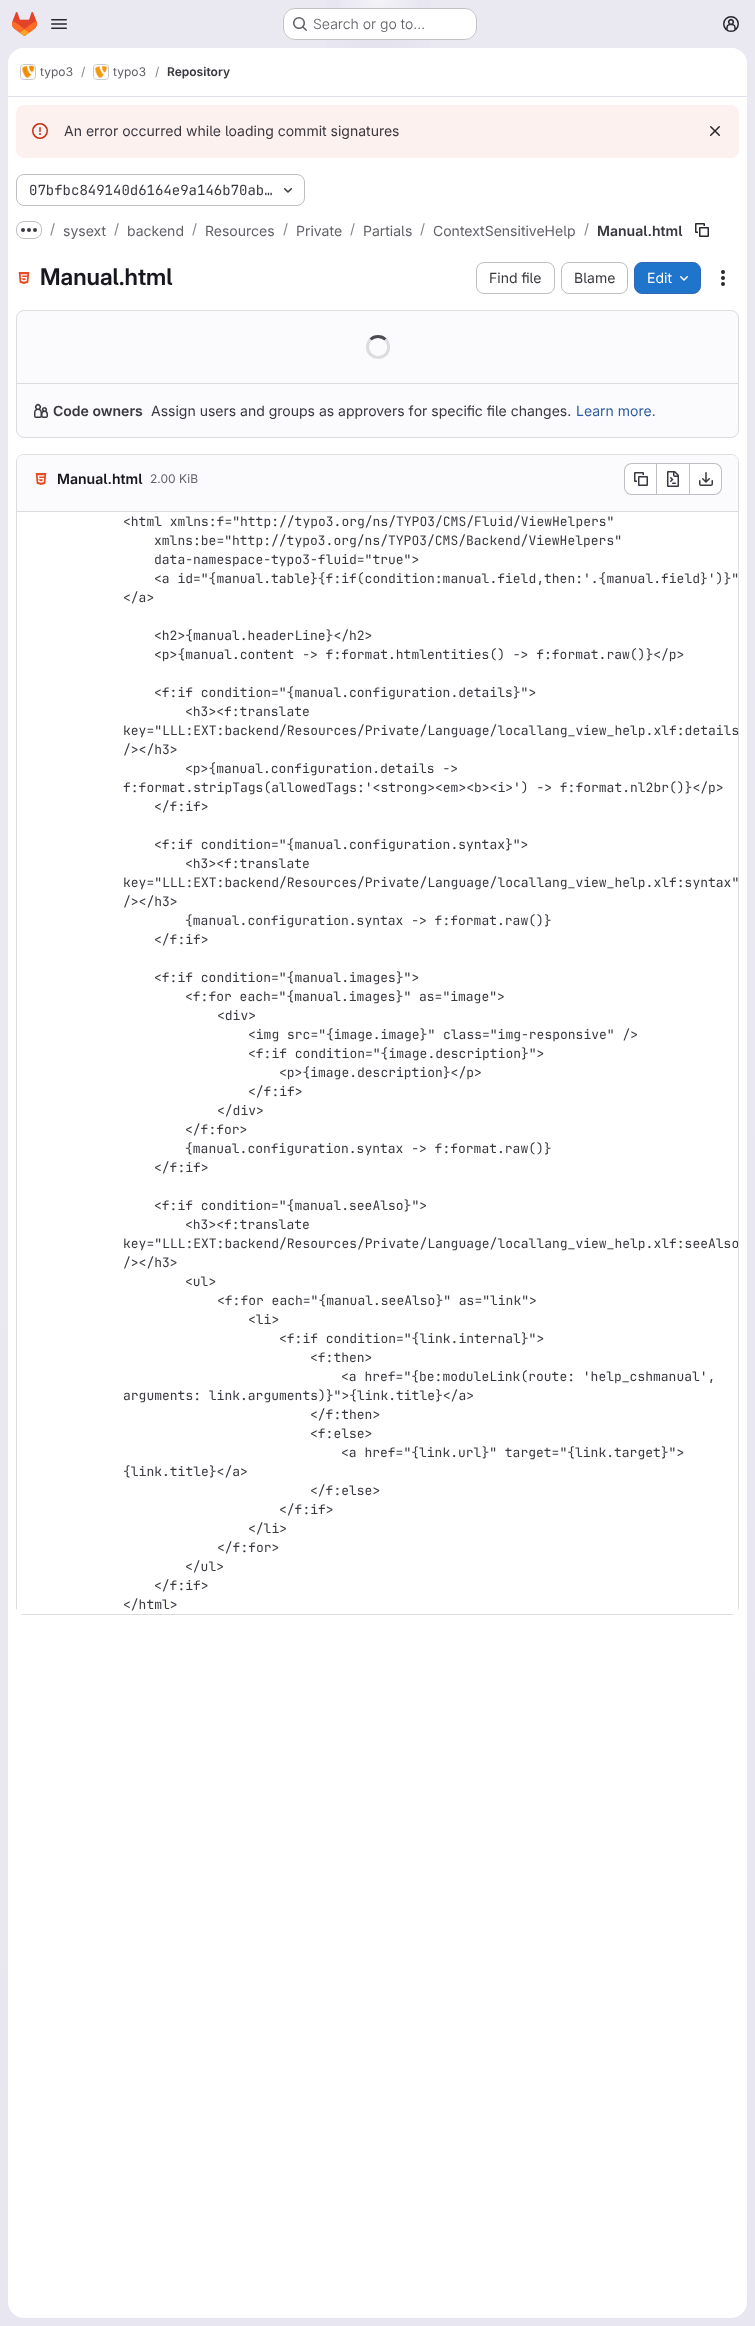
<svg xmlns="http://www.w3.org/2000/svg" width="755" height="2326">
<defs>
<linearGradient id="g1" gradientUnits="userSpaceOnUse" x1="588" y1="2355" x2="167" y2="-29"><stop offset="0" stop-color="#e8e6f0"/><stop offset="0.7" stop-color="#eae9f2"/></linearGradient>
<radialGradient id="g2" gradientUnits="userSpaceOnUse" cx="0" cy="0" r="1" gradientTransform="matrix(378 0 0 2326 378 0)"><stop offset="0" stop-color="#e4e2ed"/><stop offset="0.19" stop-color="#e4e2ed" stop-opacity="0"/></radialGradient>
<radialGradient id="g3" gradientUnits="userSpaceOnUse" cx="0" cy="0" r="1" gradientTransform="matrix(378 0 0 2326 378 0)"><stop offset="0" stop-color="#e4e2ec"/><stop offset="0.13" stop-color="#e4e2ec" stop-opacity="0"/></radialGradient>
<radialGradient id="g4" gradientUnits="userSpaceOnUse" cx="378" cy="0" r="2356"><stop offset="0" stop-color="#fff" stop-opacity="0.6"/><stop offset="0.02" stop-color="#fff" stop-opacity="0"/></radialGradient>
<clipPath id="clip1"><path d="M17 512h721v1098c0 2-2 4-4 4h-713c-2 0-4-2-4-4z"/></clipPath>
</defs>
<rect width="100%" height="100%" fill="#fff"/>
<rect width="755" height="2326" fill="url(#g1)"/>
<rect x="326" width="104" height="48" fill="url(#g2)"/>
<rect x="360" y="8" width="21" height="20" fill="url(#g3)"/>
<rect x="339" width="78" height="40" fill="url(#g4)"/>
<image x="12" y="12" width="25" height="24" href="media/1.png"/>
<image x="51" y="19" width="16" height="10" href="media/2.png"/>
<rect x="283" y="8" width="194" height="32" rx="12" fill="#fff"/>
<rect x="283.5" y="8.5" width="193" height="31" rx="11.5" fill="none" stroke="#0505063d"/>
<image x="293" y="17" width="14" height="14" href="media/3.png"/>
<text x="313" y="29" style="font-family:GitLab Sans;font-size:14px;font-weight:300;fill:#626168">Search or go to…</text>
<image x="723" y="16" width="16" height="16" href="media/4.png"/>
<rect x="8" y="48" width="739" height="2270" rx="16" fill="#fff"/>
<path d="M24 48h707c9 0 16 7 16 16v33h-739v-33c0-9 7-16 16-16z" fill="#fff"/>
<rect x="8" y="96" width="739" height="1" fill="#e1dfec"/>
<rect x="20.5" y="64.5" width="15" height="15" rx="3.5" fill="none" stroke="#dcdcde"/>
<image x="21" y="65" width="14" height="14" href="media/5.png"/>
<rect x="20.5" y="64.5" width="15" height="15" rx="3.5" fill="none" stroke="#05050614"/>
<text x="40" y="76" style="font-family:GitLab Sans;font-size:12px;fill:#626168">typo3</text>
<text x="81" y="76" style="font-family:GitLab Sans;font-size:12px;fill:#89888d">/</text>
<rect x="93.5" y="64.5" width="15" height="15" rx="3.5" fill="none" stroke="#dcdcde"/>
<image x="94" y="65" width="14" height="14" href="media/6.png"/>
<rect x="93.5" y="64.5" width="15" height="15" rx="3.5" fill="none" stroke="#05050614"/>
<text x="113" y="76" style="font-family:GitLab Sans;font-size:12px;fill:#626168">typo3</text>
<text x="155" y="76" style="font-family:GitLab Sans;font-size:12px;fill:#89888d">/</text>
<text x="167" y="76" style="font-family:GitLab Sans;font-size:12px;font-weight:600;fill:#3a383f">Repository</text>
<rect x="16" y="105" width="723" height="53" rx="8" fill="#fcf1ef"/>
<image x="32" y="123" width="16" height="16" href="media/7.png"/>
<text x="64" y="136" style="font-family:GitLab Sans;font-size:14px;fill:#3a383f">An error occurred while loading commit signatures</text>
<image x="710" y="126" width="10" height="10" href="media/8.png"/>
<rect x="16.5" y="174.5" width="288" height="31" rx="7.5" fill="none" stroke="#bfbfc3"/>
<text x="29" y="195" style="font-family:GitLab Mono;font-size:14px;fill:#3a383f">07bfbc849140d6164e9a146b70ab…</text>
<image x="284" y="188" width="8" height="5" href="media/9.png"/>
<rect x="16.5" y="221.5" width="25" height="17" rx="7.5" fill="none" stroke="#bfbfc3"/>
<image x="21" y="228" width="16" height="4" href="media/10.png"/>
<text x="50" y="234" style="font-family:GitLab Sans;font-size:14px;fill:#89888d">/</text>
<text x="63" y="236" style="font-family:GitLab Sans;font-size:14px;fill:#626168">sysext</text>
<text x="114" y="234" style="font-family:GitLab Sans;font-size:14px;fill:#89888d">/</text>
<text x="127" y="236" style="font-family:GitLab Sans;font-size:14px;fill:#626168">backend</text>
<text x="192" y="234" style="font-family:GitLab Sans;font-size:14px;fill:#89888d">/</text>
<text x="205" y="236" style="font-family:GitLab Sans;font-size:14px;fill:#626168">Resources</text>
<text x="283" y="234" style="font-family:GitLab Sans;font-size:14px;fill:#89888d">/</text>
<text x="296" y="236" style="font-family:GitLab Sans;font-size:14px;fill:#626168">Private</text>
<text x="350" y="234" style="font-family:GitLab Sans;font-size:14px;fill:#89888d">/</text>
<text x="363" y="236" style="font-family:GitLab Sans;font-size:14px;fill:#626168">Partials</text>
<text x="420" y="234" style="font-family:GitLab Sans;font-size:14px;fill:#89888d">/</text>
<text x="433" y="236" style="font-family:GitLab Sans;font-size:14px;fill:#626168">ContextSensitiveHelp</text>
<text x="584" y="234" style="font-family:GitLab Sans;font-size:14px;fill:#89888d">/</text>
<text x="597" y="236" style="font-family:GitLab Sans;font-size:14px;font-weight:600;fill:#3a383f">Manual.html</text>
<image x="695" y="223" width="14" height="14" href="media/11.png"/>
<image x="18" y="272" width="12" height="12" href="media/12.png"/>
<text x="40" y="285" style="font-family:'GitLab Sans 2';font-size:23px;font-weight:600;fill:#18171d">Manual.html</text>
<rect x="476.5" y="262.5" width="78" height="31" rx="7.5" fill="none" stroke="#bfbfc3"/>
<text x="489" y="283" style="font-family:GitLab Sans;font-size:14px;fill:#3a383f">Find file</text>
<rect x="561.5" y="262.5" width="66" height="31" rx="7.5" fill="none" stroke="#bfbfc3"/>
<text x="574" y="283" style="font-family:GitLab Sans;font-size:14px;fill:#3a383f">Blame</text>
<rect x="634.5" y="262.5" width="66" height="31" rx="7.5" fill="#1f75cb" stroke="#2f68b4"/>
<text x="647" y="283" style="font-family:GitLab Sans;font-size:14px;fill:#fff">Edit</text>
<image x="680" y="276" width="8" height="5" href="media/13.png"/>
<image x="721" y="270" width="4" height="16" href="media/14.png"/>
<rect x="16.5" y="310.5" width="722" height="127" rx="7.5" fill="#fbfafd" stroke="#dcdcde"/>
<path d="M370.5 339.5c4-4 11-4 15 0" fill="none" stroke="#4c4b51" stroke-width="3"/>
<path d="M385.5 339.5c2.5 2.5 3.5 6 3 9.5c-2.5 12.5-21 10.5-21-2c0-3 1-5.5 3-7.5" fill="none" stroke="#dcdcde" stroke-width="3"/>
<rect x="17" y="383" width="721" height="1" fill="#dcdcde"/>
<image x="34" y="403" width="14" height="15" href="media/15.png"/>
<text x="53" y="416" style="font-family:GitLab Sans;font-size:14px;font-weight:600;fill:#3a383f">Code owners</text>
<text x="151" y="416" style="font-family:GitLab Sans;font-size:14px;fill:#3a383f">Assign users and groups as approvers for specific file changes.</text>
<text x="576" y="416" style="font-family:GitLab Sans;font-size:14px;fill:#2f5ca0">Learn more.</text>
<rect x="16.5" y="454.5" width="722" height="1160" rx="7.5" fill="none" stroke="#dcdcde"/>
<path d="M24 455h707c4 0 7 3 7 7v50h-721v-50c0-4 3-7 7-7z" fill="#fbfafd"/>
<rect x="17" y="511" width="721" height="1" fill="#dcdcde"/>
<image x="35" y="473" width="12" height="12" href="media/16.png"/>
<text x="57" y="484" style="font-family:GitLab Sans;font-size:14px;font-weight:600;fill:#18171d">Manual.html</text>
<text x="150" y="483" style="font-family:GitLab Sans;font-size:12px;fill:#626168">2.00 KiB</text>
<path d="M632 464h24v30h-24c-4 0-7-3-7-7v-16c0-4 3-7 7-7z" fill="#fff"/>
<path d="M632 463h24v32h-24c-4.5 0-8-3.5-8-8v-16c0-4.5 3.5-8 8-8zm0 1h24v30h-24c-4 0-7-3-7-7v-16c0-4 3-7 7-7z" fill="#bfbfc3" fill-rule="evenodd"/>
<image x="634" y="472" width="14" height="14" href="media/17.png"/>
<rect x="657" y="464" width="32" height="30" fill="#fff"/>
<rect x="657" y="463" width="32" height="1" fill="#bfbfc3"/>
<rect x="657" y="494" width="32" height="1" fill="#bfbfc3"/>
<rect x="656" y="463" width="1" height="32" fill="#bfbfc3"/>
<image x="667" y="471" width="12" height="16" href="media/18.png"/>
<path d="M690 464h24c4 0 7 3 7 7v16c0 4-3 7-7 7h-24z" fill="#fff"/>
<path d="M690 463h24c4.5 0 8 3.5 8 8v16c0 4.5-3.5 8-8 8h-24zm0 1h24c4 0 7 3 7 7v16c0 4-3 7-7 7h-24z" fill="#bfbfc3" fill-rule="evenodd"/>
<rect x="689" y="463" width="1" height="32" fill="#bfbfc3"/>
<image x="699" y="472" width="14" height="14" href="media/19.png"/>
<path d="M17 512h721v1098c0 2-2 4-4 4h-713c-2 0-4-2-4-4z" fill="#fff"/>
<path d="M17 512h96v1102h-92c-2 0-4-2-4-4z" fill="#fff"/>
<path d="M121 512h617v1098c0 2-2 4-4 4h-613z" fill="#fff"/>
<text x="123" y="526" style="font-family:GitLab Mono;font-size:13px;fill:#3a383f">&lt;html xmlns:f="http://typo3.org/ns/TYPO3/CMS/Fluid/ViewHelpers"</text>
<text x="154" y="545" style="font-family:GitLab Mono;font-size:13px;fill:#3a383f">xmlns:be="http://typo3.org/ns/TYPO3/CMS/Backend/ViewHelpers"</text>
<text x="154" y="564" style="font-family:GitLab Mono;font-size:13px;fill:#3a383f">data-namespace-typo3-fluid="true"&gt;</text>
<text x="154" y="583" style="font-family:GitLab Mono;font-size:13px;fill:#3a383f">&lt;a id="{manual.table}{f:if(condition:manual.field,then:'.{manual.field}')}"</text>
<text x="123" y="602" style="font-family:GitLab Mono;font-size:13px;fill:#3a383f">&lt;/a&gt;</text>
<text x="154" y="640" style="font-family:GitLab Mono;font-size:13px;fill:#3a383f">&lt;h2&gt;{manual.headerLine}&lt;/h2&gt;</text>
<text x="154" y="659" style="font-family:GitLab Mono;font-size:13px;fill:#3a383f">&lt;p&gt;{manual.content -&gt; f:format.htmlentities() -&gt; f:format.raw()}&lt;/p&gt;</text>
<text x="154" y="697" style="font-family:GitLab Mono;font-size:13px;fill:#3a383f">&lt;f:if condition="{manual.configuration.details}"&gt;</text>
<text x="185" y="716" style="font-family:GitLab Mono;font-size:13px;fill:#3a383f">&lt;h3&gt;&lt;f:translate</text>
<text x="123" y="735" style="font-family:GitLab Mono;font-size:13px;fill:#3a383f">key="LLL:EXT:backend/Resources/Private/Language/locallang_view_help.xlf:details</text>
<text x="123" y="754" style="font-family:GitLab Mono;font-size:13px;fill:#3a383f">/&gt;&lt;/h3&gt;</text>
<text x="185" y="773" style="font-family:GitLab Mono;font-size:13px;fill:#3a383f">&lt;p&gt;{manual.configuration.details -&gt;</text>
<text x="123" y="792" style="font-family:GitLab Mono;font-size:13px;fill:#3a383f">f:format.stripTags(allowedTags:'&lt;strong&gt;&lt;em&gt;&lt;b&gt;&lt;i&gt;') -&gt; f:format.nl2br()}&lt;/p&gt;</text>
<text x="154" y="811" style="font-family:GitLab Mono;font-size:13px;fill:#3a383f">&lt;/f:if&gt;</text>
<text x="154" y="849" style="font-family:GitLab Mono;font-size:13px;fill:#3a383f">&lt;f:if condition="{manual.configuration.syntax}"&gt;</text>
<text x="185" y="868" style="font-family:GitLab Mono;font-size:13px;fill:#3a383f">&lt;h3&gt;&lt;f:translate</text>
<text x="123" y="887" style="font-family:GitLab Mono;font-size:13px;fill:#3a383f">key="LLL:EXT:backend/Resources/Private/Language/locallang_view_help.xlf:syntax"</text>
<text x="123" y="906" style="font-family:GitLab Mono;font-size:13px;fill:#3a383f">/&gt;&lt;/h3&gt;</text>
<text x="185" y="925" style="font-family:GitLab Mono;font-size:13px;fill:#3a383f">{manual.configuration.syntax -&gt; f:format.raw()}</text>
<text x="154" y="944" style="font-family:GitLab Mono;font-size:13px;fill:#3a383f">&lt;/f:if&gt;</text>
<text x="154" y="982" style="font-family:GitLab Mono;font-size:13px;fill:#3a383f">&lt;f:if condition="{manual.images}"&gt;</text>
<text x="185" y="1001" style="font-family:GitLab Mono;font-size:13px;fill:#3a383f">&lt;f:for each="{manual.images}" as="image"&gt;</text>
<text x="217" y="1020" style="font-family:GitLab Mono;font-size:13px;fill:#3a383f">&lt;div&gt;</text>
<text x="248" y="1039" style="font-family:GitLab Mono;font-size:13px;fill:#3a383f">&lt;img src="{image.image}" class="img-responsive" /&gt;</text>
<text x="248" y="1058" style="font-family:GitLab Mono;font-size:13px;fill:#3a383f">&lt;f:if condition="{image.description}"&gt;</text>
<text x="279" y="1077" style="font-family:GitLab Mono;font-size:13px;fill:#3a383f">&lt;p&gt;{image.description}&lt;/p&gt;</text>
<text x="248" y="1096" style="font-family:GitLab Mono;font-size:13px;fill:#3a383f">&lt;/f:if&gt;</text>
<text x="217" y="1115" style="font-family:GitLab Mono;font-size:13px;fill:#3a383f">&lt;/div&gt;</text>
<text x="185" y="1134" style="font-family:GitLab Mono;font-size:13px;fill:#3a383f">&lt;/f:for&gt;</text>
<text x="185" y="1153" style="font-family:GitLab Mono;font-size:13px;fill:#3a383f">{manual.configuration.syntax -&gt; f:format.raw()}</text>
<text x="154" y="1172" style="font-family:GitLab Mono;font-size:13px;fill:#3a383f">&lt;/f:if&gt;</text>
<text x="154" y="1210" style="font-family:GitLab Mono;font-size:13px;fill:#3a383f">&lt;f:if condition="{manual.seeAlso}"&gt;</text>
<text x="185" y="1229" style="font-family:GitLab Mono;font-size:13px;fill:#3a383f">&lt;h3&gt;&lt;f:translate</text>
<g clip-path="url(#clip1)">
<text x="123" y="1248" style="font-family:GitLab Mono;font-size:13px;fill:#3a383f">key="LLL:EXT:backend/Resources/Private/Language/locallang_view_help.xlf:seeAlso</text>
</g>
<text x="123" y="1267" style="font-family:GitLab Mono;font-size:13px;fill:#3a383f">/&gt;&lt;/h3&gt;</text>
<text x="185" y="1286" style="font-family:GitLab Mono;font-size:13px;fill:#3a383f">&lt;ul&gt;</text>
<text x="217" y="1305" style="font-family:GitLab Mono;font-size:13px;fill:#3a383f">&lt;f:for each="{manual.seeAlso}" as="link"&gt;</text>
<text x="248" y="1324" style="font-family:GitLab Mono;font-size:13px;fill:#3a383f">&lt;li&gt;</text>
<text x="279" y="1343" style="font-family:GitLab Mono;font-size:13px;fill:#3a383f">&lt;f:if condition="{link.internal}"&gt;</text>
<text x="310" y="1362" style="font-family:GitLab Mono;font-size:13px;fill:#3a383f">&lt;f:then&gt;</text>
<text x="341" y="1381" style="font-family:GitLab Mono;font-size:13px;fill:#3a383f">&lt;a href="{be:moduleLink(route: 'help_cshmanual',</text>
<text x="123" y="1400" style="font-family:GitLab Mono;font-size:13px;fill:#3a383f">arguments: link.arguments)}"&gt;{link.title}&lt;/a&gt;</text>
<text x="310" y="1419" style="font-family:GitLab Mono;font-size:13px;fill:#3a383f">&lt;/f:then&gt;</text>
<text x="310" y="1438" style="font-family:GitLab Mono;font-size:13px;fill:#3a383f">&lt;f:else&gt;</text>
<text x="341" y="1457" style="font-family:GitLab Mono;font-size:13px;fill:#3a383f">&lt;a href="{link.url}" target="{link.target}"&gt;</text>
<text x="123" y="1476" style="font-family:GitLab Mono;font-size:13px;fill:#3a383f">{link.title}&lt;/a&gt;</text>
<text x="310" y="1495" style="font-family:GitLab Mono;font-size:13px;fill:#3a383f">&lt;/f:else&gt;</text>
<text x="279" y="1514" style="font-family:GitLab Mono;font-size:13px;fill:#3a383f">&lt;/f:if&gt;</text>
<text x="248" y="1533" style="font-family:GitLab Mono;font-size:13px;fill:#3a383f">&lt;/li&gt;</text>
<text x="217" y="1552" style="font-family:GitLab Mono;font-size:13px;fill:#3a383f">&lt;/f:for&gt;</text>
<text x="185" y="1571" style="font-family:GitLab Mono;font-size:13px;fill:#3a383f">&lt;/ul&gt;</text>
<text x="154" y="1590" style="font-family:GitLab Mono;font-size:13px;fill:#3a383f">&lt;/f:if&gt;</text>
<text x="123" y="1609" style="font-family:GitLab Mono;font-size:13px;fill:#3a383f">&lt;/html&gt;</text>
</svg>
